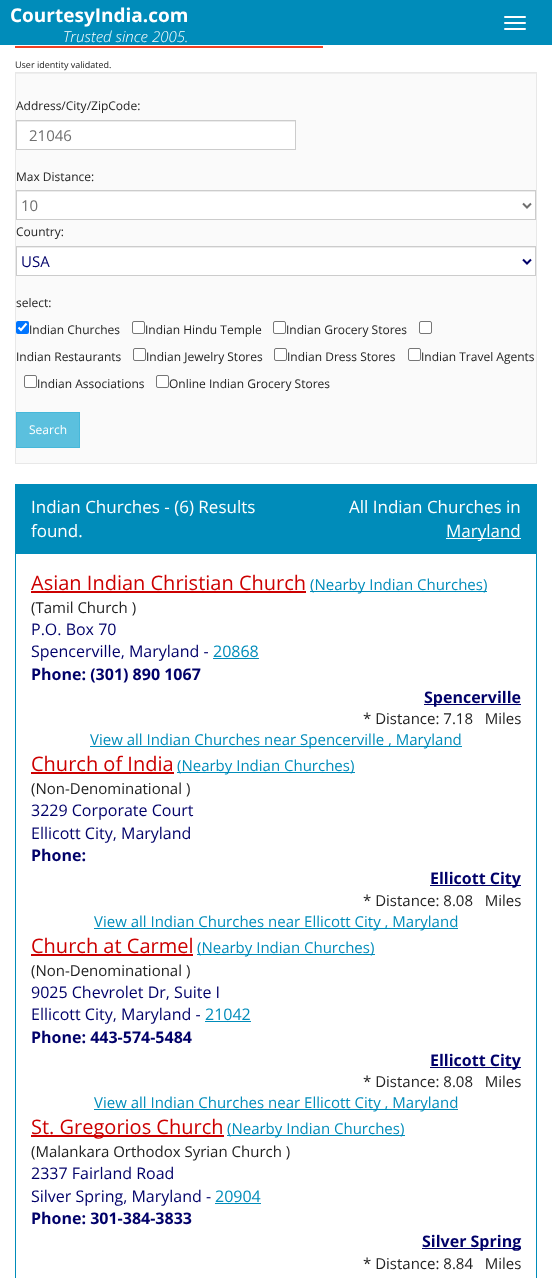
<svg xmlns="http://www.w3.org/2000/svg" width="552" height="1278">
<rect width="100%" height="100%" fill="#fff"/>
<rect width="552" height="45" fill="#008cba"/>
<text x="10" y="22" style="font-family:Open Sans;font-size:19px;font-weight:bold;fill:#fff">CourtesyIndia.com</text>
<text x="63" y="42" style="font-family:Open Sans;font-size:15px;font-weight:300;font-style:italic;fill:#fff">Trusted since 2005.</text>
<rect x="504" y="16" width="22" height="2" rx="1" fill="#fff"/>
<rect x="504" y="22" width="22" height="2" rx="1" fill="#fff"/>
<rect x="504" y="28" width="22" height="2" rx="1" fill="#fff"/>
<rect x="15" y="46" width="308" height="2" fill="#f04124"/>
<text x="15" y="68" style="font-family:Open Sans;font-size:9px;fill:#222">User identity validated.</text>
<rect x="16" y="74" width="520" height="389" fill="#fafafa"/>
<rect x="16" y="73" width="520" height="1" fill="#eee"/>
<rect x="15.5" y="72.5" width="521" height="391" fill="none" stroke="#e8e8e8"/>
<text x="16" y="110" style="font-family:Open Sans;font-size:12px;fill:#222">Address/City/ZipCode:</text>
<rect x="17" y="122" width="278" height="27" fill="#fff"/>
<rect x="17" y="121" width="278" height="1" fill="#ececec"/>
<rect x="16.5" y="120.5" width="279" height="29" fill="none" stroke="#ccc"/>
<text x="29" y="141" style="font-family:Open Sans;font-size:15px;fill:#6f6f6f">21046</text>
<text x="16" y="181" style="font-family:Open Sans;font-size:12px;fill:#222">Max Distance:</text>
<rect x="17" y="192" width="518" height="27" fill="#fff"/>
<rect x="17" y="191" width="518" height="1" fill="#ececec"/>
<rect x="16.5" y="190.5" width="519" height="29" fill="none" stroke="#ccc"/>
<path d="M523 203.5l4 4l4-4" fill="none" stroke="#6f6f6f" stroke-width="2"/>
<text x="21" y="211" style="font-family:Open Sans;font-size:15px;fill:#6f6f6f">10</text>
<text x="16" y="236" style="font-family:Open Sans;font-size:12px;fill:#222">Country:</text>
<rect x="17" y="248" width="518" height="27" fill="#fff"/>
<rect x="17" y="247" width="518" height="1" fill="#ececec"/>
<rect x="16.5" y="246.5" width="519" height="29" fill="none" stroke="#ccc"/>
<path d="M523 259.5l4 4l4-4" fill="none" stroke="#000069" stroke-width="2"/>
<text x="21" y="267" style="font-family:Open Sans;font-size:15px;fill:#000069">USA</text>
<text x="16" y="307" style="font-family:Open Sans;font-size:12px;fill:#222">select:</text>
<rect x="16" y="321" width="13" height="13" rx="2" fill="#0075ff"/>
<path d="M18.5 327.5l2.5 2.5l5.5-6.5" fill="none" stroke="#fff" stroke-width="2.1"/>
<text x="29" y="334" style="font-family:Open Sans;font-size:12px;fill:#222">Indian Churches</text>
<rect x="132.5" y="321.5" width="12" height="12" rx="1.5" fill="#fff" stroke="#767676"/>
<text x="145" y="334" style="font-family:Open Sans;font-size:12px;fill:#222">Indian Hindu Temple</text>
<rect x="273.5" y="321.5" width="12" height="12" rx="1.5" fill="#fff" stroke="#767676"/>
<text x="286" y="334" style="font-family:Open Sans;font-size:12px;fill:#222">Indian Grocery Stores</text>
<rect x="419.5" y="321.5" width="12" height="12" rx="1.5" fill="#fff" stroke="#767676"/>
<text x="16" y="361" style="font-family:Open Sans;font-size:12px;fill:#222">Indian Restaurants</text>
<rect x="133.5" y="348.5" width="12" height="12" rx="1.5" fill="#fff" stroke="#767676"/>
<text x="146" y="361" style="font-family:Open Sans;font-size:12px;fill:#222">Indian Jewelry Stores</text>
<rect x="274.5" y="348.5" width="12" height="12" rx="1.5" fill="#fff" stroke="#767676"/>
<text x="287" y="361" style="font-family:Open Sans;font-size:12px;fill:#222">Indian Dress Stores</text>
<rect x="408.5" y="348.5" width="12" height="12" rx="1.5" fill="#fff" stroke="#767676"/>
<text x="421" y="361" style="font-family:Open Sans;font-size:12px;fill:#222">Indian Travel Agents</text>
<rect x="24.5" y="375.5" width="12" height="12" rx="1.5" fill="#fff" stroke="#767676"/>
<text x="37" y="388" style="font-family:Open Sans;font-size:12px;fill:#222">Indian Associations</text>
<rect x="156.5" y="375.5" width="12" height="12" rx="1.5" fill="#fff" stroke="#767676"/>
<text x="169" y="388" style="font-family:Open Sans;font-size:12px;fill:#222">Online Indian Grocery Stores</text>
<rect x="16.5" y="412.5" width="63" height="35" fill="#5bc0de" stroke="#46b8da"/>
<text x="29" y="434" style="font-family:Open Sans;font-size:12px;fill:#fff">Search</text>
<rect x="15.5" y="484.5" width="521" height="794" fill="none" stroke="#008cba"/>
<rect x="16" y="485" width="520" height="69" fill="#008cba"/>
<text x="31" y="513" style="font-family:Open Sans;font-size:17px;fill:#fff">Indian Churches - (6) Results</text>
<text x="31" y="537" style="font-family:Open Sans;font-size:17px;fill:#fff">found.</text>
<text x="349" y="513" style="font-family:Open Sans;font-size:17px;fill:#fff">All Indian Churches in</text>
<rect x="446" y="538" width="75" height="1" fill="#fff"/>
<text x="446" y="537" style="font-family:Open Sans;font-size:17px;fill:#fff">Maryland</text>
<text x="31" y="590" style="font-family:Open Sans;font-size:20px;fill:#c00">Asian Indian Christian Church</text>
<rect x="31" y="591" width="275" height="2" fill="#c00"/>
<rect x="310" y="591" width="177" height="1" fill="#008cba"/>
<text x="310" y="590" style="font-family:Open Sans;font-size:15px;fill:#008cba">(Nearby Indian Churches)</text>
<text x="31" y="613" style="font-family:Open Sans;font-size:15px;fill:#222">(Tamil Church )</text>
<text x="31" y="635" style="font-family:Open Sans;font-size:16px;fill:#000069">P.O. Box 70</text>
<text x="31" y="657" style="font-family:Open Sans;font-size:16px;fill:#000069">Spencerville, Maryland -</text>
<text x="213" y="657" style="font-family:Open Sans;font-size:16px;fill:#008cba">20868</text>
<rect x="213" y="658" width="46" height="1" fill="#008cba"/>
<text x="31" y="680" style="font-family:Open Sans;font-size:16px;font-weight:bold;fill:#000069">Phone: (301) 890 1067</text>
<rect x="424" y="704" width="97" height="1" fill="#000069"/>
<text x="424" y="703" style="font-family:Open Sans;font-size:16px;font-weight:bold;fill:#000069">Spencerville</text>
<text x="363" y="724" style="font-family:Open Sans;font-size:15px;fill:#222" xml:space="preserve">* Distance: 7.18   Miles</text>
<rect x="90" y="746" width="372" height="1" fill="#008cba"/>
<text x="90" y="745" style="font-family:Open Sans;font-size:15px;fill:#008cba">View all Indian Churches near Spencerville , Maryland</text>
<text x="31" y="771" style="font-family:Open Sans;font-size:20px;fill:#c00">Church of India</text>
<rect x="31" y="772" width="143" height="2" fill="#c00"/>
<rect x="177" y="772" width="178" height="1" fill="#008cba"/>
<text x="177" y="771" style="font-family:Open Sans;font-size:15px;fill:#008cba">(Nearby Indian Churches)</text>
<text x="31" y="794" style="font-family:Open Sans;font-size:15px;fill:#222">(Non-Denominational )</text>
<text x="31" y="816" style="font-family:Open Sans;font-size:16px;fill:#000069">3229 Corporate Court</text>
<text x="31" y="839" style="font-family:Open Sans;font-size:16px;fill:#000069">Ellicott City, Maryland</text>
<text x="31" y="861" style="font-family:Open Sans;font-size:16px;font-weight:bold;fill:#000069">Phone:</text>
<rect x="430" y="885" width="91" height="1" fill="#000069"/>
<text x="430" y="884" style="font-family:Open Sans;font-size:16px;font-weight:bold;fill:#000069">Ellicott City</text>
<text x="363" y="906" style="font-family:Open Sans;font-size:15px;fill:#222" xml:space="preserve">* Distance: 8.08   Miles</text>
<rect x="94" y="928" width="364" height="1" fill="#008cba"/>
<text x="94" y="927" style="font-family:Open Sans;font-size:15px;fill:#008cba">View all Indian Churches near Ellicott City , Maryland</text>
<text x="31" y="953" style="font-family:Open Sans;font-size:20px;fill:#c00">Church at Carmel</text>
<rect x="31" y="954" width="162" height="2" fill="#c00"/>
<rect x="197" y="954" width="178" height="1" fill="#008cba"/>
<text x="197" y="953" style="font-family:Open Sans;font-size:15px;fill:#008cba">(Nearby Indian Churches)</text>
<text x="31" y="976" style="font-family:Open Sans;font-size:15px;fill:#222">(Non-Denominational )</text>
<text x="31" y="998" style="font-family:Open Sans;font-size:16px;fill:#000069">9025 Chevrolet Dr, Suite I</text>
<text x="31" y="1020" style="font-family:Open Sans;font-size:16px;fill:#000069">Ellicott City, Maryland -</text>
<text x="205" y="1020" style="font-family:Open Sans;font-size:16px;fill:#008cba">21042</text>
<rect x="205" y="1021" width="46" height="1" fill="#008cba"/>
<text x="31" y="1043" style="font-family:Open Sans;font-size:16px;font-weight:bold;fill:#000069">Phone: 443-574-5484</text>
<rect x="430" y="1067" width="91" height="1" fill="#000069"/>
<text x="430" y="1066" style="font-family:Open Sans;font-size:16px;font-weight:bold;fill:#000069">Ellicott City</text>
<text x="363" y="1087" style="font-family:Open Sans;font-size:15px;fill:#222" xml:space="preserve">* Distance: 8.08   Miles</text>
<rect x="94" y="1109" width="364" height="1" fill="#008cba"/>
<text x="94" y="1108" style="font-family:Open Sans;font-size:15px;fill:#008cba">View all Indian Churches near Ellicott City , Maryland</text>
<rect x="31" y="1135" width="193" height="2" fill="#c00"/>
<text x="31" y="1134" style="font-family:Open Sans;font-size:20px;fill:#c00">St. Gregorios Church</text>
<rect x="227" y="1135" width="178" height="1" fill="#008cba"/>
<text x="227" y="1134" style="font-family:Open Sans;font-size:15px;fill:#008cba">(Nearby Indian Churches)</text>
<text x="31" y="1157" style="font-family:Open Sans;font-size:15px;fill:#222">(Malankara Orthodox Syrian Church )</text>
<text x="31" y="1179" style="font-family:Open Sans;font-size:16px;fill:#000069">2337 Fairland Road</text>
<text x="31" y="1202" style="font-family:Open Sans;font-size:16px;fill:#000069">Silver Spring, Maryland -</text>
<text x="215" y="1202" style="font-family:Open Sans;font-size:16px;fill:#008cba">20904</text>
<rect x="215" y="1203" width="46" height="1" fill="#008cba"/>
<text x="31" y="1224" style="font-family:Open Sans;font-size:16px;font-weight:bold;fill:#000069">Phone: 301-384-3833</text>
<rect x="422" y="1248" width="99" height="1" fill="#000069"/>
<text x="422" y="1247" style="font-family:Open Sans;font-size:16px;font-weight:bold;fill:#000069">Silver Spring</text>
<text x="363" y="1269" style="font-family:Open Sans;font-size:15px;fill:#222" xml:space="preserve">* Distance: 8.84   Miles</text>
</svg>
